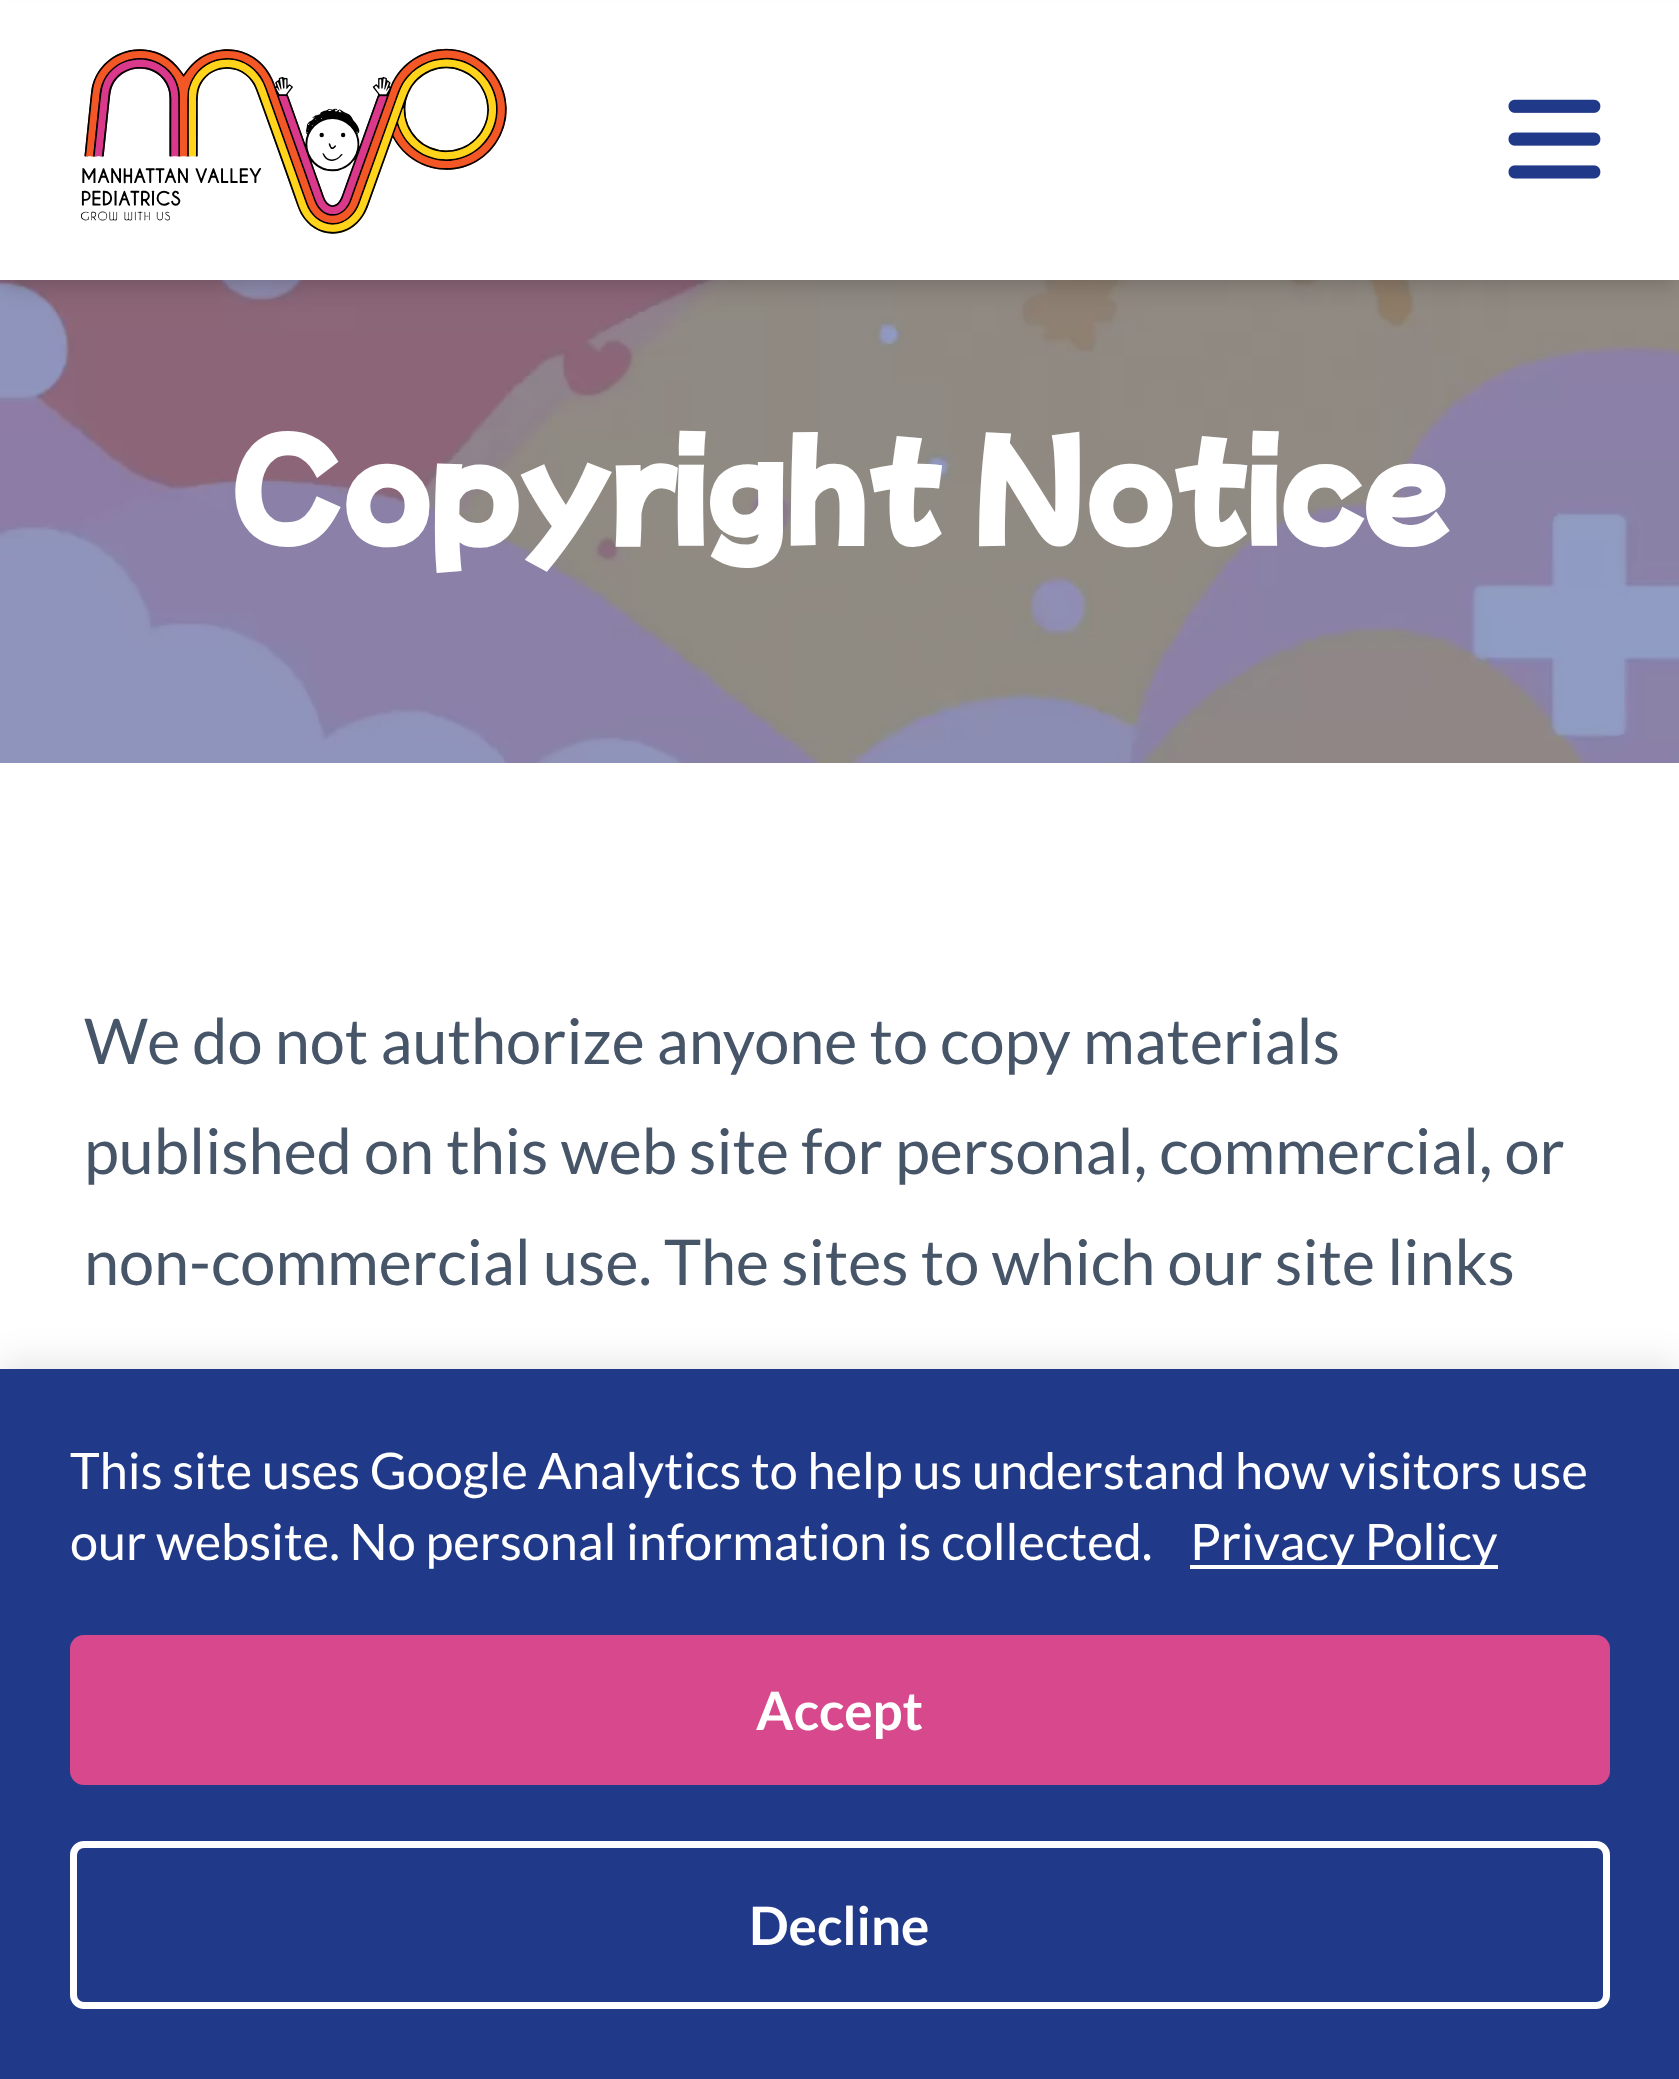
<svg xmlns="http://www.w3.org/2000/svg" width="1679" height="2079">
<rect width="100%" height="100%" fill="#fff"/>
<image x="0" y="280" width="1679" height="483" href="media/3.png"/>
<rect x="7" y="14" width="1666" height="266" fill="#0000001a" filter="blur(7px)"/>
<rect x="4" y="18" width="1673" height="273" fill="#0000001a" filter="blur(10.5px)"/>
<rect y="2" width="1679" height="278" fill="#fff"/>
<image x="81" y="48" width="426" height="186" href="media/1.png"/>
<image x="1508" y="99" width="93" height="80" href="media/2.png"/>
<text x="230" y="537" style="font-family:Mochiy Pop One;font-size:126px;font-weight:bold;fill:#fff">Copyright Notice</text>
<text x="84" y="1064" style="font-family:Lato;font-size:63px;fill:#475569">We do not authorize anyone to copy materials</text>
<text x="84" y="1174" style="font-family:Lato;font-size:63px;fill:#475569">published on this web site for personal, commercial, or</text>
<text x="84" y="1285" style="font-family:Lato;font-size:63px;fill:#475569">non-commercial use. The sites to which our site links</text>
<rect y="1362" width="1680" height="710" fill="#0000001a" filter="blur(17.5px)"/>
<rect y="1369" width="1679" height="710" fill="#213989"/>
<text x="70" y="1489" style="font-family:Lato;font-size:50.4px;fill:#fff">This site uses Google Analytics to help us understand how visitors use</text>
<text x="70" y="1560" style="font-family:Lato;font-size:50.4px;fill:#fff">our website. No personal information is collected.</text>
<rect x="1190" y="1565" width="308" height="4" fill="#fff"/>
<text x="1190" y="1560" style="font-family:Lato;font-size:50.4px;fill:#fff">Privacy Policy</text>
<rect x="70" y="1635" width="1540" height="150" rx="14" fill="#d8488d"/>
<text x="756" y="1730" style="font-family:Lato;font-size:53px;font-weight:bold;fill:#fff">Accept</text>
<rect x="73.5" y="1844.5" width="1533" height="161" rx="10.5" fill="none" stroke="#fff" stroke-width="7"/>
<text x="749" y="1945" style="font-family:Lato;font-size:53px;font-weight:bold;fill:#fff">Decline</text>
</svg>
